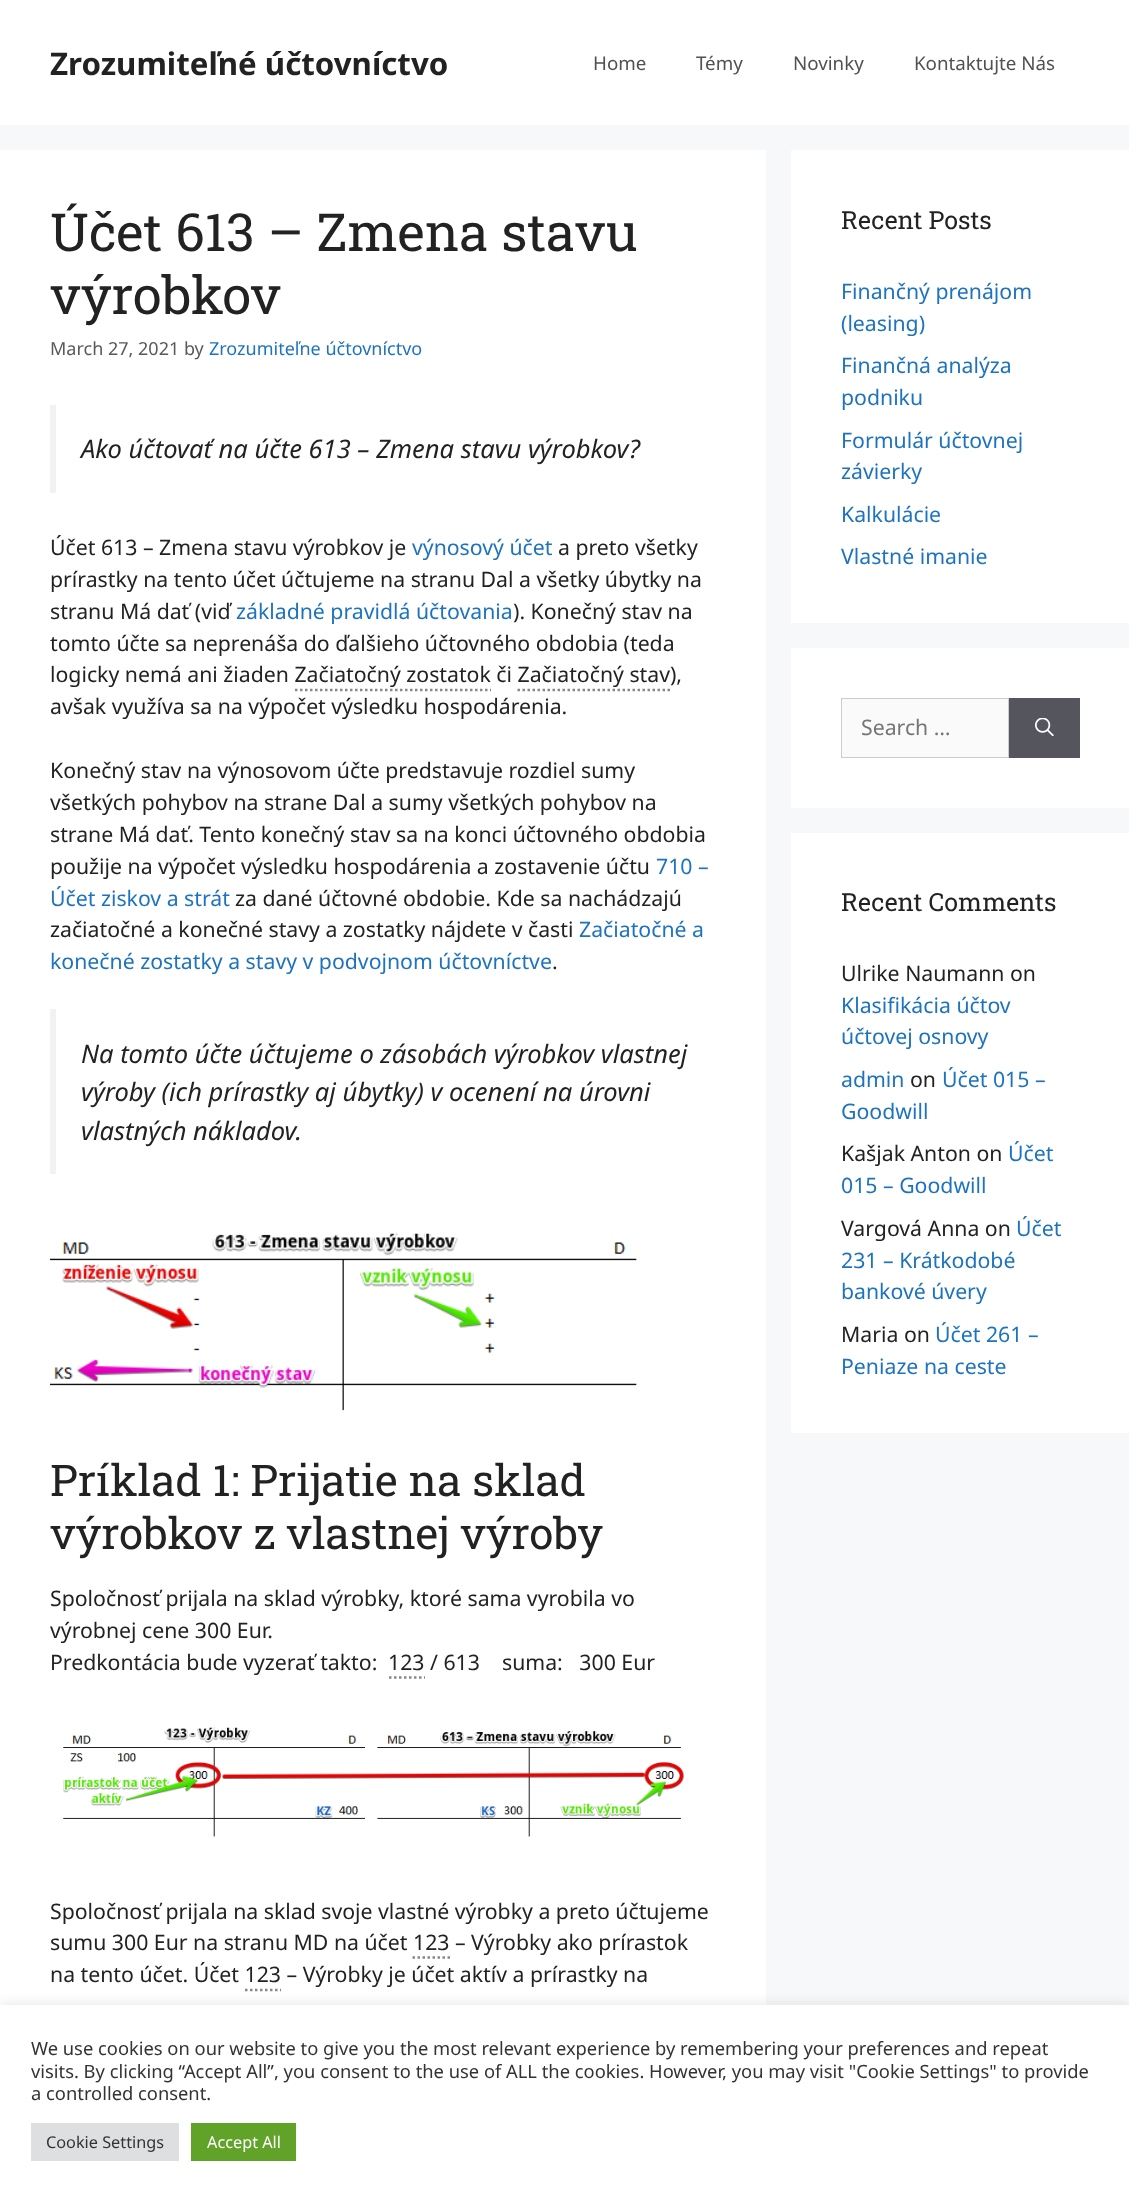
<svg xmlns="http://www.w3.org/2000/svg" width="1129" height="2198">
<rect width="100%" height="100%" fill="#f7f8f9"/>
<rect width="1129" height="125" fill="#fff"/>
<text x="50" y="75" style="font-family:Noto Sans;font-size:31.25px;font-weight:bold;fill:#222">Zrozumiteľné účtovníctvo</text>
<text x="593" y="70" style="font-family:Noto Sans;font-size:18.75px;fill:#515151">Home</text>
<text x="696" y="70" style="font-family:Noto Sans;font-size:18.75px;fill:#515151">Témy</text>
<text x="793" y="70" style="font-family:Noto Sans;font-size:18.75px;fill:#515151">Novinky</text>
<text x="914" y="70" style="font-family:Noto Sans;font-size:18.75px;fill:#515151">Kontaktujte Nás</text>
<rect y="150" width="766" height="1855" fill="#fff"/>
<text x="50" y="251" style="font-family:Roboto Slab;font-size:52.5px;fill:#222">Účet 613 – Zmena stavu</text>
<text x="50" y="314" style="font-family:Roboto Slab;font-size:52.5px;fill:#222">výrobkov</text>
<text x="50" y="355" style="font-family:Noto Sans;font-size:18px;fill:#595959">March 27, 2021 by</text>
<text x="209" y="355" style="font-family:Noto Sans;font-size:18px;fill:#1e73be">Zrozumiteľne účtovníctvo</text>
<rect x="50" y="405" width="6" height="88" fill="#f2f2f2"/>
<text x="81" y="458" style="font-family:Noto Sans;font-size:25.5px;font-style:italic;fill:#222">Ako účtovať na účte 613 – Zmena stavu výrobkov?</text>
<text x="50" y="555" style="font-family:Noto Sans;font-size:21.25px;fill:#222">Účet 613 – Zmena stavu výrobkov je</text>
<text x="412" y="555" style="font-family:Noto Sans;font-size:21.25px;fill:#1e73be">výnosový účet</text>
<text x="558" y="555" style="font-family:Noto Sans;font-size:21.25px;fill:#222">a preto všetky</text>
<text x="50" y="587" style="font-family:Noto Sans;font-size:21.25px;fill:#222">prírastky na tento účet účtujeme na stranu Dal a všetky úbytky na</text>
<text x="50" y="619" style="font-family:Noto Sans;font-size:21.25px;fill:#222">stranu Má dať (viď</text>
<text x="236" y="619" style="font-family:Noto Sans;font-size:21.25px;fill:#1e73be">základné pravidlá účtovania</text>
<text x="513" y="619" style="font-family:Noto Sans;font-size:21.25px;fill:#222">). Konečný stav na</text>
<text x="50" y="651" style="font-family:Noto Sans;font-size:21.25px;fill:#222">tomto účte sa neprenáša do ďalšieho účtovného obdobia (teda</text>
<text x="50" y="682" style="font-family:Noto Sans;font-size:21.25px;fill:#222">logicky nemá ani žiaden Začiatočný zostatok či Začiatočný stav),</text>
<path d="M295 690h196" fill="none" stroke="#888" stroke-width="2.5" stroke-dasharray="2.5 2.5"/>
<path d="M517.5 690h152.5" fill="none" stroke="#888" stroke-width="2.5" stroke-dasharray="2.5 2.5"/>
<text x="50" y="714" style="font-family:Noto Sans;font-size:21.25px;fill:#222">avšak využíva sa na výpočet výsledku hospodárenia.</text>
<text x="50" y="778" style="font-family:Noto Sans;font-size:21.25px;fill:#222">Konečný stav na výnosovom účte predstavuje rozdiel sumy</text>
<text x="50" y="810" style="font-family:Noto Sans;font-size:21.25px;fill:#222">všetkých pohybov na strane Dal a sumy všetkých pohybov na</text>
<text x="50" y="842" style="font-family:Noto Sans;font-size:21.25px;fill:#222">strane Má dať. Tento konečný stav sa na konci účtovného obdobia</text>
<text x="50" y="874" style="font-family:Noto Sans;font-size:21.25px;fill:#222">použije na výpočet výsledku hospodárenia a zostavenie účtu</text>
<text x="656" y="874" style="font-family:Noto Sans;font-size:21.25px;fill:#1e73be">710 –</text>
<text x="50" y="906" style="font-family:Noto Sans;font-size:21.25px;fill:#1e73be">Účet ziskov a strát</text>
<text x="235" y="906" style="font-family:Noto Sans;font-size:21.25px;fill:#222">za dané účtovné obdobie. Kde sa nachádzajú</text>
<text x="50" y="937" style="font-family:Noto Sans;font-size:21.25px;fill:#222">začiatočné a konečné stavy a zostatky nájdete v časti</text>
<text x="579" y="937" style="font-family:Noto Sans;font-size:21.25px;fill:#1e73be">Začiatočné a</text>
<text x="50" y="969" style="font-family:Noto Sans;font-size:21.25px;fill:#1e73be">konečné zostatky a stavy v podvojnom účtovníctve</text>
<text x="552" y="969" style="font-family:Noto Sans;font-size:21.25px;fill:#222">.</text>
<rect x="50" y="1009" width="6" height="165" fill="#f2f2f2"/>
<text x="81" y="1063" style="font-family:Noto Sans;font-size:25.5px;font-style:italic;fill:#222">Na tomto účte účtujeme o zásobách výrobkov vlastnej</text>
<text x="81" y="1101" style="font-family:Noto Sans;font-size:25.5px;font-style:italic;fill:#222">výroby (ich prírastky aj úbytky) v ocenení na úrovni</text>
<text x="81" y="1140" style="font-family:Noto Sans;font-size:25.5px;font-style:italic;fill:#222">vlastných nákladov.</text>
<image x="50" y="1232" width="587" height="179" href="media/1.png"/>
<text x="50" y="1496" style="font-family:Roboto Slab;font-size:43.75px;fill:#222">Príklad 1: Prijatie na sklad</text>
<text x="50" y="1549" style="font-family:Roboto Slab;font-size:43.75px;fill:#222">výrobkov z vlastnej výroby</text>
<text x="50" y="1606" style="font-family:Noto Sans;font-size:21.25px;fill:#222">Spoločnosť prijala na sklad výrobky, ktoré sama vyrobila vo</text>
<text x="50" y="1638" style="font-family:Noto Sans;font-size:21.25px;fill:#222">výrobnej cene 300 Eur.</text>
<text x="50" y="1670" style="font-family:Noto Sans;font-size:21.25px;fill:#222">Predkontácia bude vyzerať takto:</text>
<text x="388" y="1670" style="font-family:Noto Sans;font-size:21.25px;fill:#222" xml:space="preserve">123 / 613    suma:   300 Eur</text>
<path d="M389 1677.5h36" fill="none" stroke="#888" stroke-width="2.5" stroke-dasharray="2.5 2.5"/>
<image x="63" y="1727" width="621" height="110" href="media/2.png"/>
<text x="50" y="1919" style="font-family:Noto Sans;font-size:21.25px;fill:#222">Spoločnosť prijala na sklad svoje vlastné výrobky a preto účtujeme</text>
<text x="50" y="1950" style="font-family:Noto Sans;font-size:21.25px;fill:#222">sumu 300 Eur na stranu MD na účet 123 – Výrobky ako prírastok</text>
<path d="M412.5 1957.5h37.5" fill="none" stroke="#888" stroke-width="2.5" stroke-dasharray="2.5 2.5"/>
<text x="50" y="1982" style="font-family:Noto Sans;font-size:21.25px;fill:#222">na tento účet. Účet 123 – Výrobky je účet aktív a prírastky na</text>
<path d="M245 1990h36" fill="none" stroke="#888" stroke-width="2.5" stroke-dasharray="2.5 2.5"/>
<rect x="791" y="150" width="338" height="473" fill="#fff"/>
<text x="841" y="229" style="font-family:Roboto Slab;font-size:25px;fill:#222">Recent Posts</text>
<text x="841" y="299" style="font-family:Noto Sans;font-size:21.25px;fill:#1e73be">Finančný prenájom</text>
<text x="841" y="331" style="font-family:Noto Sans;font-size:21.25px;fill:#1e73be">(leasing)</text>
<text x="841" y="373" style="font-family:Noto Sans;font-size:21.25px;fill:#1e73be">Finančná analýza</text>
<text x="841" y="405" style="font-family:Noto Sans;font-size:21.25px;fill:#1e73be">podniku</text>
<text x="841" y="448" style="font-family:Noto Sans;font-size:21.25px;fill:#1e73be">Formulár účtovnej</text>
<text x="841" y="479" style="font-family:Noto Sans;font-size:21.25px;fill:#1e73be">závierky</text>
<text x="841" y="522" style="font-family:Noto Sans;font-size:21.25px;fill:#1e73be">Kalkulácie</text>
<text x="841" y="564" style="font-family:Noto Sans;font-size:21.25px;fill:#1e73be">Vlastné imanie</text>
<rect x="791" y="648" width="338" height="160" fill="#fff"/>
<rect x="841.5" y="698.5" width="167" height="59" fill="#fafafa" stroke="#ccc"/>
<text x="861" y="735" style="font-family:Noto Sans;font-size:21.25px;fill:#757575">Search …</text>
<rect x="1009" y="698" width="71" height="60" fill="#55555e"/>
<image x="1035" y="718" width="19" height="18" href="media/3.png"/>
<rect x="791" y="833" width="338" height="600" fill="#fff"/>
<text x="841" y="911" style="font-family:Roboto Slab;font-size:25px;fill:#222">Recent Comments</text>
<text x="841" y="981" style="font-family:Noto Sans;font-size:21.25px;fill:#222">Ulrike Naumann on</text>
<text x="841" y="1013" style="font-family:Noto Sans;font-size:21.25px;fill:#1e73be">Klasifikácia účtov</text>
<text x="841" y="1044" style="font-family:Noto Sans;font-size:21.25px;fill:#1e73be">účtovej osnovy</text>
<text x="841" y="1087" style="font-family:Noto Sans;font-size:21.25px;fill:#1e73be">admin</text>
<text x="910" y="1087" style="font-family:Noto Sans;font-size:21.25px;fill:#222">on</text>
<text x="942" y="1087" style="font-family:Noto Sans;font-size:21.25px;fill:#1e73be">Účet 015 –</text>
<text x="841" y="1119" style="font-family:Noto Sans;font-size:21.25px;fill:#1e73be">Goodwill</text>
<text x="841" y="1161" style="font-family:Noto Sans;font-size:21.25px;fill:#222">Kašjak Anton on</text>
<text x="1008" y="1161" style="font-family:Noto Sans;font-size:21.25px;fill:#1e73be">Účet</text>
<text x="841" y="1193" style="font-family:Noto Sans;font-size:21.25px;fill:#1e73be">015 – Goodwill</text>
<text x="841" y="1236" style="font-family:Noto Sans;font-size:21.25px;fill:#222">Vargová Anna on</text>
<text x="1016" y="1236" style="font-family:Noto Sans;font-size:21.25px;fill:#1e73be">Účet</text>
<text x="841" y="1268" style="font-family:Noto Sans;font-size:21.25px;fill:#1e73be">231 – Krátkodobé</text>
<text x="841" y="1299" style="font-family:Noto Sans;font-size:21.25px;fill:#1e73be">bankové úvery</text>
<text x="841" y="1342" style="font-family:Noto Sans;font-size:21.25px;fill:#222">Maria on</text>
<text x="935" y="1342" style="font-family:Noto Sans;font-size:21.25px;fill:#1e73be">Účet 261 –</text>
<text x="841" y="1374" style="font-family:Noto Sans;font-size:21.25px;fill:#1e73be">Peniaze na ceste</text>
<rect y="2004" width="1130" height="194" fill="#acabab4d" filter="blur(6px)"/>
<rect y="2005" width="1129" height="193" fill="#fff"/>
<text x="31" y="2055" style="font-family:Noto Sans;font-size:18.33px;fill:#333">We use cookies on our website to give you the most relevant experience by remembering your preferences and repeat</text>
<text x="31" y="2078" style="font-family:Noto Sans;font-size:18.33px;fill:#333">visits. By clicking “Accept All”, you consent to the use of ALL the cookies. However, you may visit "Cookie Settings" to provide</text>
<text x="31" y="2100" style="font-family:Noto Sans;font-size:18.33px;fill:#333">a controlled consent.</text>
<rect x="31" y="2123" width="148" height="38" fill="#dedfe0"/>
<text x="46" y="2148" style="font-family:Noto Sans;font-size:16.25px;fill:#333">Cookie Settings</text>
<rect x="191" y="2123" width="105" height="38" fill="#61a229"/>
<text x="207" y="2148" style="font-family:Noto Sans;font-size:16.25px;fill:#fff">Accept All</text>
</svg>
